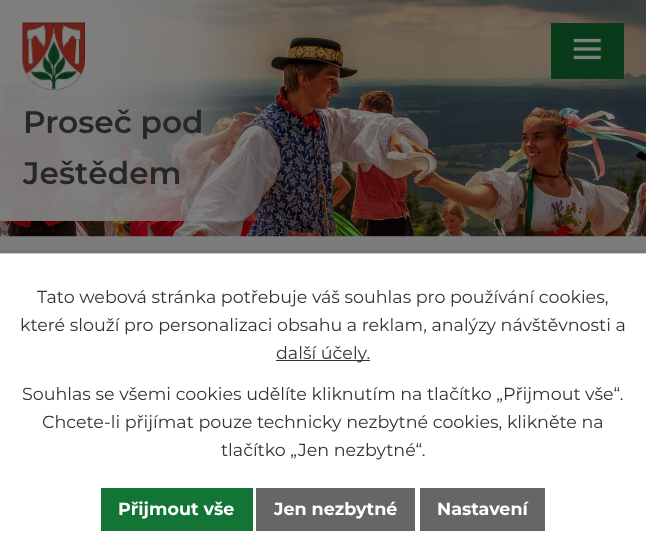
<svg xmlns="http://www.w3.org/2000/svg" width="646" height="559">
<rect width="100%" height="100%" fill="#7c7c7c"/>
<image x="0" y="0" width="646" height="237" href="media/2.png"/>
<rect x="551" y="23" width="73" height="56" fill="#093b1b"/>
<image x="573" y="38" width="28" height="22" href="media/1.png"/>
<image x="22" y="22" width="63" height="68" href="media/3.png"/>
<text x="23" y="133" style="font-family:Montserrat;font-size:31.25px;font-weight:600;fill:#272727">Proseč pod</text>
<text x="23" y="184" style="font-family:Montserrat;font-size:31.25px;font-weight:600;fill:#272727">Ještědem</text>
<rect y="253" width="646" height="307" fill="#00000033" filter="blur(3px)"/>
<rect y="254" width="646" height="305" fill="#fff"/>
<rect y="253" width="646" height="1" fill="#ccc"/>
<text x="37" y="303" style="font-family:Montserrat;font-size:17.5px;fill:#333">Tato webová stránka potřebuje váš souhlas pro používání cookies,</text>
<text x="20" y="331" style="font-family:Montserrat;font-size:17.5px;fill:#333">které slouží pro personalizaci obsahu a reklam, analýzy návštěvnosti a</text>
<rect x="276" y="360" width="94" height="1" fill="#333"/>
<text x="276" y="359" style="font-family:Montserrat;font-size:17.5px;fill:#333">další účely.</text>
<text x="22" y="400" style="font-family:Montserrat;font-size:17.5px;fill:#333">Souhlas se všemi cookies udělíte kliknutím na tlačítko „Přijmout vše“.</text>
<text x="42" y="428" style="font-family:Montserrat;font-size:17.5px;fill:#333">Chcete-li přijímat pouze technicky nezbytné cookies, klikněte na</text>
<text x="221" y="456" style="font-family:Montserrat;font-size:17.5px;fill:#333">tlačítko „Jen nezbytné“.</text>
<rect x="101" y="488" width="152" height="43" fill="#127535"/>
<text x="118" y="515" style="font-family:Montserrat;font-size:17.5px;font-weight:bold;fill:#fff">Přijmout vše</text>
<rect x="256" y="488" width="159" height="43" fill="#666"/>
<text x="274" y="515" style="font-family:Montserrat;font-size:17.5px;font-weight:bold;fill:#fff">Jen nezbytné</text>
<rect x="420" y="488" width="125" height="43" fill="#666"/>
<text x="437" y="515" style="font-family:Montserrat;font-size:17.5px;font-weight:bold;fill:#fff">Nastavení</text>
</svg>
